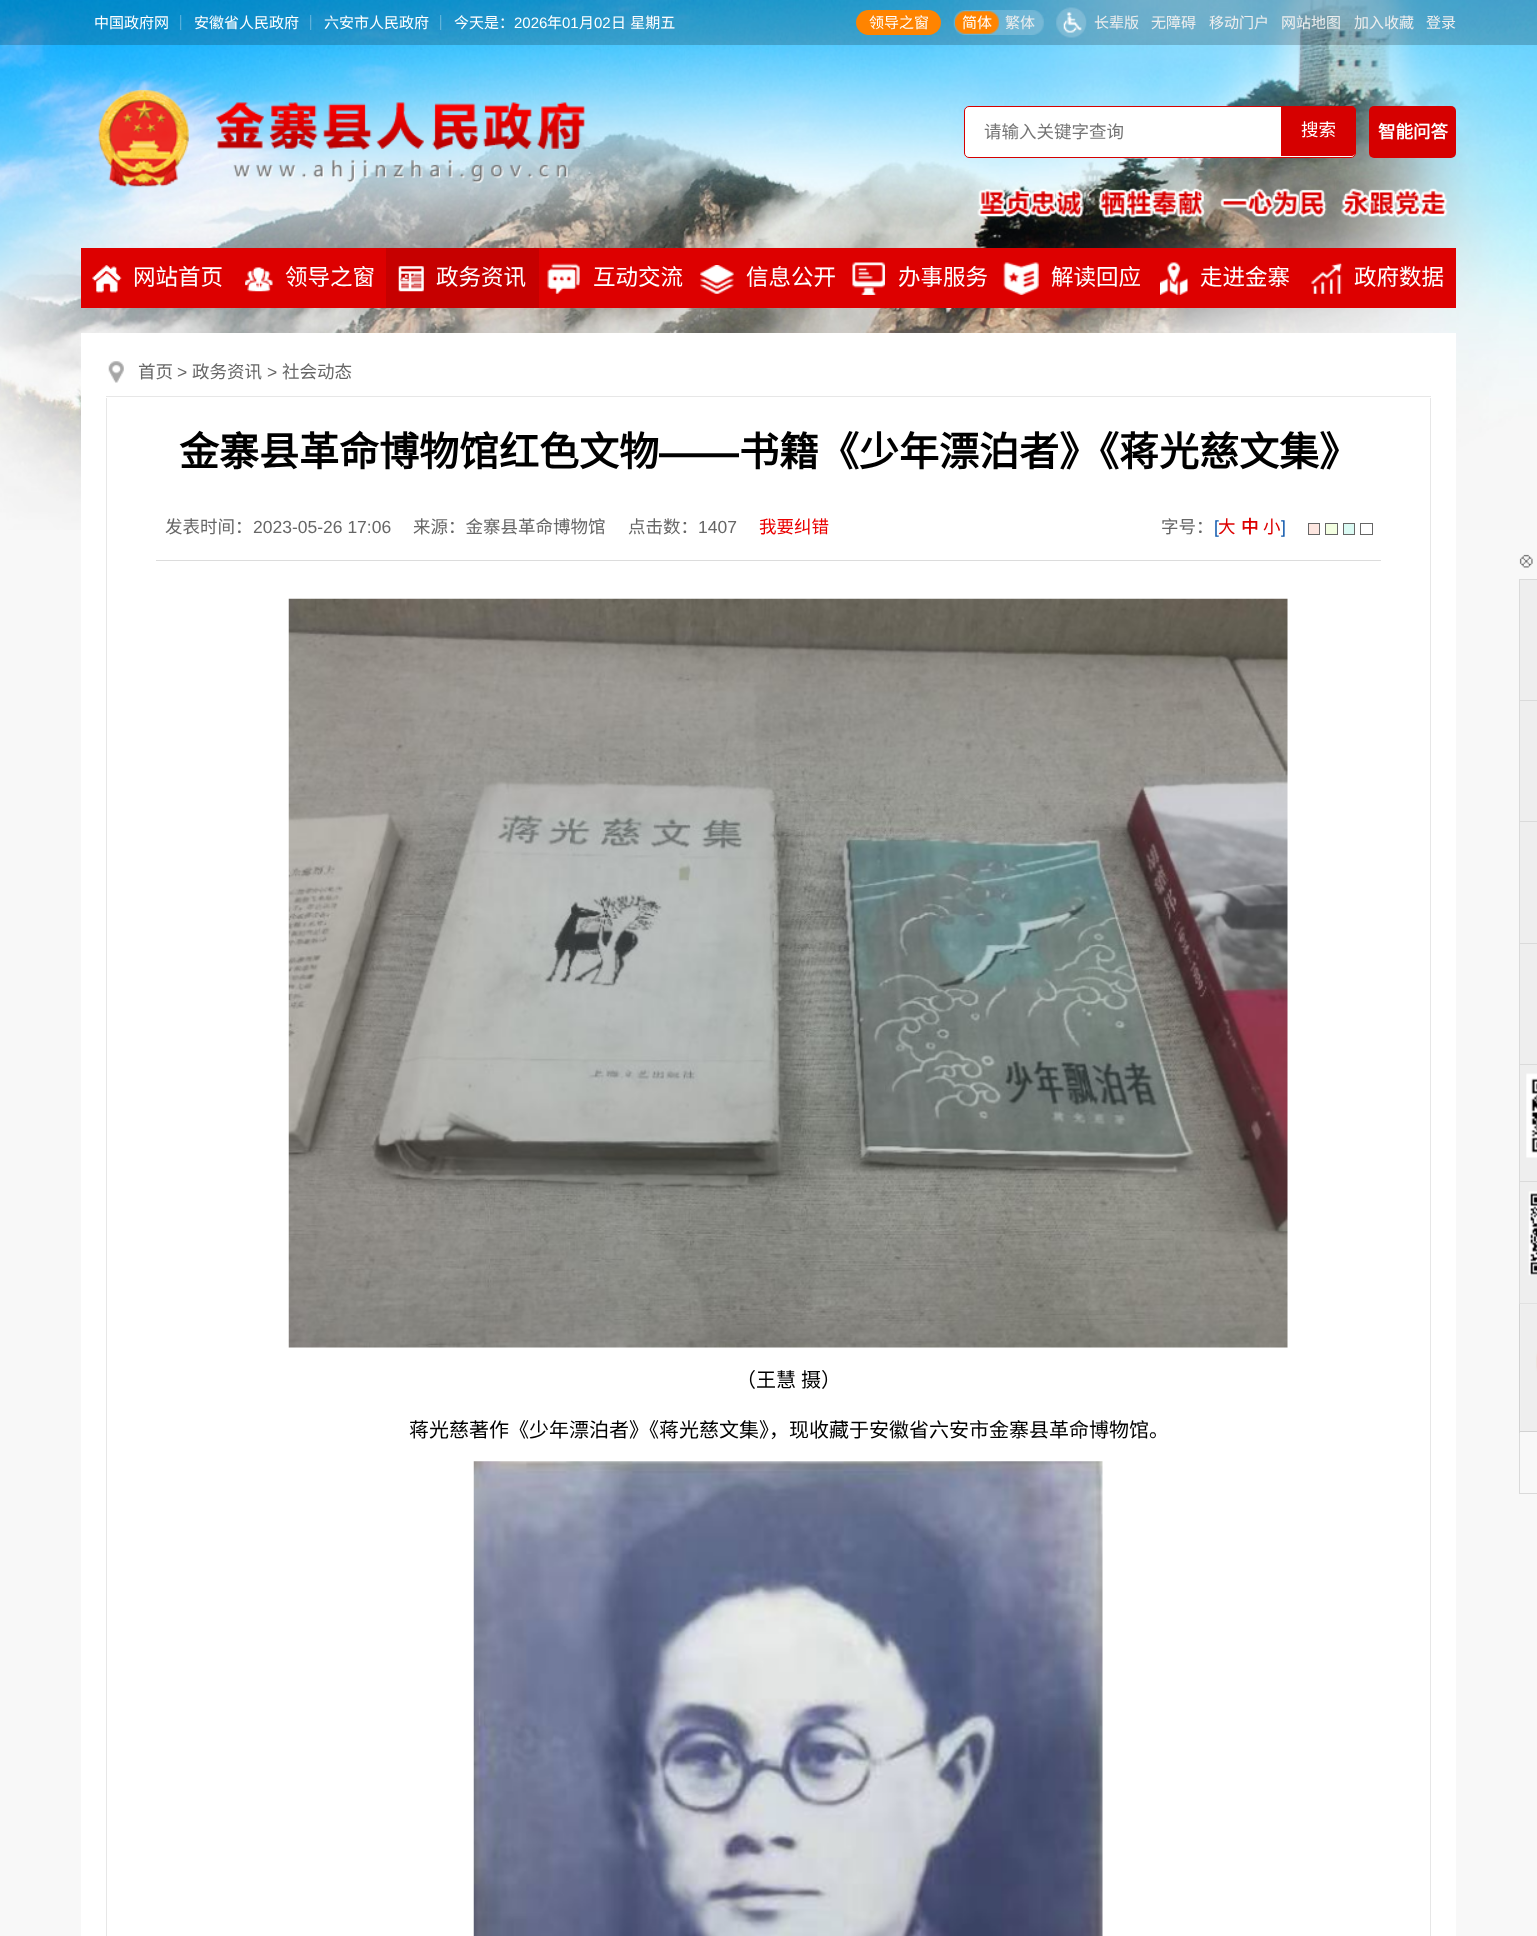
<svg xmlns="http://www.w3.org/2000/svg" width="1537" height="1936">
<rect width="100%" height="100%" fill="#f8f8f8"/>
<image x="0" y="0" width="1537" height="530" href="media/1.png"/>
<rect width="1537" height="45" fill="#00000033"/>
<image x="180" y="15" width="2" height="15" href="media/2.png"/>
<text x="94" y="28" style="font-family:Noto Sans CJK SC;font-size:15px;fill:#fff">中国政府网</text>
<image x="310" y="15" width="2" height="15" href="media/3.png"/>
<text x="194" y="28" style="font-family:Noto Sans CJK SC;font-size:15px;fill:#fff">安徽省人民政府</text>
<image x="440" y="15" width="2" height="15" href="media/4.png"/>
<text x="324" y="28" style="font-family:Noto Sans CJK SC;font-size:15px;fill:#fff">六安市人民政府</text>
<text x="454" y="28" style="font-family:Noto Sans CJK SC;font-size:15px;fill:#fff">今天是：</text>
<text x="514" y="28" style="font-family:Liberation Sans;font-size:15px;fill:#fff">2026</text>
<text x="547" y="28" style="font-family:Noto Sans CJK SC;font-size:15px;fill:#fff">年</text>
<text x="562" y="28" style="font-family:Liberation Sans;font-size:15px;fill:#fff">01</text>
<text x="579" y="28" style="font-family:Noto Sans CJK SC;font-size:15px;fill:#fff">月</text>
<text x="594" y="28" style="font-family:Liberation Sans;font-size:15px;fill:#fff">02</text>
<text x="611" y="28" word-spacing="1" style="font-family:Noto Sans CJK SC;font-size:15px;fill:#fff">日 星期五</text>
<rect x="856" y="10" width="85" height="25" rx="12.5" fill="#ff8400"/>
<text x="869" y="28" style="font-family:Noto Sans CJK SC;font-size:15px;fill:#fff">领导之窗</text>
<image x="953" y="10" width="91" height="25" href="media/5.png"/>
<image x="955" y="11" width="44" height="23" href="media/6.png"/>
<text x="962" y="28" style="font-family:Noto Sans CJK SC;font-size:15px;fill:#fff">简体</text>
<text x="1005" y="28" style="font-family:Noto Sans CJK SC;font-size:15px;fill:#eee">繁体</text>
<image x="1056" y="7" width="31" height="31" href="media/7.png"/>
<text x="1094" y="28" style="font-family:Noto Sans CJK SC;font-size:15px;fill:#eee">长辈版</text>
<text x="1151" y="28" style="font-family:Noto Sans CJK SC;font-size:15px;fill:#eee">无障碍</text>
<text x="1209" y="28" style="font-family:Noto Sans CJK SC;font-size:15px;fill:#eee">移动门户</text>
<text x="1281" y="28" style="font-family:Noto Sans CJK SC;font-size:15px;fill:#eee">网站地图</text>
<text x="1354" y="28" style="font-family:Noto Sans CJK SC;font-size:15px;fill:#eee">加入收藏</text>
<text x="1426" y="28" style="font-family:Noto Sans CJK SC;font-size:15px;fill:#eee">登录</text>
<image x="98" y="90" width="487" height="97" href="media/8.png"/>
<rect x="964.5" y="106.5" width="391" height="51" rx="4.5" fill="#fff" stroke="#d60000"/>
<text x="984" y="138" style="font-family:Noto Sans CJK SC;font-size:17.5px;fill:#757575">请输入关键字查询</text>
<path d="M1281 106h70c3 0 5 2 5 5v40c0 3-2 5-5 5h-70z" fill="#d60000"/>
<text x="1301" y="136" style="font-family:Noto Sans CJK SC;font-size:17.5px;fill:#fff">搜索</text>
<rect x="1369" y="106" width="87" height="52" rx="5" fill="#d60000"/>
<text x="1378" y="138" style="font-family:Noto Sans CJK SC;font-size:17.5px;font-weight:bold;fill:#fff">智能问答</text>
<image x="977" y="188" width="471" height="30" href="media/9.png"/>
<rect x="81" y="248" width="1375" height="60" fill="#d00"/>
<image x="92" y="265" width="30" height="28" href="media/10.png"/>
<text x="133" y="285" style="font-family:Noto Sans CJK SC;font-size:22.5px;fill:#fff">网站首页</text>
<image x="245" y="267" width="28" height="25" href="media/11.png"/>
<text x="285" y="285" style="font-family:Noto Sans CJK SC;font-size:22.5px;fill:#fff">领导之窗</text>
<rect x="386" y="248" width="153" height="60" fill="#c60000"/>
<image x="398" y="266" width="26" height="26" href="media/12.png"/>
<text x="436" y="285" style="font-family:Noto Sans CJK SC;font-size:22.5px;fill:#fff">政务资讯</text>
<image x="547" y="263" width="33" height="31" href="media/13.png"/>
<text x="593" y="285" style="font-family:Noto Sans CJK SC;font-size:22.5px;fill:#fff">互动交流</text>
<image x="700" y="265" width="34" height="29" href="media/14.png"/>
<text x="746" y="285" style="font-family:Noto Sans CJK SC;font-size:22.5px;fill:#fff">信息公开</text>
<image x="852" y="262" width="33" height="33" href="media/15.png"/>
<text x="898" y="285" style="font-family:Noto Sans CJK SC;font-size:22.5px;fill:#fff">办事服务</text>
<image x="1003" y="262" width="36" height="33" href="media/16.png"/>
<text x="1051" y="285" style="font-family:Noto Sans CJK SC;font-size:22.5px;fill:#fff">解读回应</text>
<image x="1160" y="262" width="28" height="33" href="media/17.png"/>
<text x="1200" y="285" style="font-family:Noto Sans CJK SC;font-size:22.5px;fill:#fff">走进金寨</text>
<image x="1311" y="263" width="31" height="31" href="media/18.png"/>
<text x="1354" y="285" style="font-family:Noto Sans CJK SC;font-size:22.5px;fill:#fff">政府数据</text>
<rect x="81" y="333" width="1375" height="1603" fill="#fff"/>
<image x="108" y="361" width="16" height="22" href="media/19.png"/>
<rect x="106" y="396" width="1325" height="1" fill="#e7e7e7"/>
<text x="138" y="378" style="font-family:Noto Sans CJK SC;font-size:17.5px;fill:#666">首页</text>
<text x="177" y="378" style="font-family:Liberation Sans;font-size:17.5px;fill:#666">&gt;</text>
<text x="192" y="378" style="font-family:Noto Sans CJK SC;font-size:17.5px;fill:#666">政务资讯</text>
<text x="267" y="378" style="font-family:Liberation Sans;font-size:17.5px;fill:#666">&gt;</text>
<text x="282" y="378" style="font-family:Noto Sans CJK SC;font-size:17.5px;fill:#666">社会动态</text>
<rect x="1430" y="398" width="1" height="1538" fill="#e7e7e7"/>
<rect x="106" y="398" width="1" height="1538" fill="#e7e7e7"/>
<text x="179" y="466" style="font-family:Noto Sans CJK SC;font-size:40px;font-weight:bold;fill:#000">金寨县革命博物馆红色文物</text>
<text x="659" y="466" style="font-family:Liberation Sans;font-size:40px;font-weight:bold;fill:#000">——</text>
<text x="739" y="466" style="font-family:Noto Sans CJK SC;font-size:40px;font-weight:bold;fill:#000">书籍《少年漂泊者》《蒋光慈文集》</text>
<rect x="156" y="560" width="1225" height="1" fill="#dcdcdc"/>
<text x="165" y="533" style="font-family:Noto Sans CJK SC;font-size:17.5px;fill:#666">发表时间：</text>
<text x="253" y="533" style="font-family:Liberation Sans;font-size:17.5px;fill:#666">2023-05-26 17:06</text>
<text x="413" y="533" style="font-family:Noto Sans CJK SC;font-size:17.5px;fill:#666">来源：金寨县革命博物馆</text>
<text x="628" y="533" style="font-family:Noto Sans CJK SC;font-size:17.5px;fill:#666">点击数：</text>
<text x="698" y="533" style="font-family:Liberation Sans;font-size:17.5px;fill:#666">1407</text>
<text x="759" y="533" style="font-family:Noto Sans CJK SC;font-size:17.5px;fill:#ea0000">我要纠错</text>
<text x="1161" y="533" style="font-family:Noto Sans CJK SC;font-size:17.5px;fill:#666">字号：</text>
<text x="1214" y="533" style="font-family:Liberation Sans;font-size:17.5px;fill:#0d57ac">[</text>
<text x="1218" y="533" style="font-family:Noto Sans CJK SC;font-size:17.5px;fill:#d00">大</text>
<text x="1241" y="533" style="font-family:Noto Sans CJK SC;font-size:17.5px;font-weight:bold;fill:#d00">中</text>
<text x="1263" y="533" style="font-family:Noto Sans CJK SC;font-size:17.5px;fill:#d00">小</text>
<text x="1281" y="533" style="font-family:Liberation Sans;font-size:17.5px;fill:#0d57ac">]</text>
<rect x="1308.5" y="523.5" width="11" height="11" fill="#fde6e0" stroke="#666"/>
<rect x="1325.5" y="523.5" width="12" height="11" fill="#f3ffe1" stroke="#666"/>
<rect x="1343.5" y="523.5" width="11" height="11" fill="#dafaf3" stroke="#666"/>
<rect x="1360.5" y="523.5" width="12" height="11" fill="none" stroke="#666"/>
<image x="288" y="598" width="1000" height="750" href="media/20.png"/>
<text x="736" y="1387" style="font-family:Noto Sans CJK SC;font-size:20px;fill:#000">（王慧</text>
<text x="801" y="1387" style="font-family:Noto Sans CJK SC;font-size:20px;fill:#000">摄）</text>
<text x="409" y="1437" style="font-family:Noto Sans CJK SC;font-size:20px;fill:#000">蒋光慈著作《少年漂泊者》《蒋光慈文集》，现收藏于安徽省六安市金寨县革命博物馆。</text>
<image x="473" y="1461" width="630" height="475" href="media/21.png"/>
<image x="1519" y="554" width="14" height="14" href="media/22.png"/>
<rect x="1520" y="580" width="17" height="723" fill="#eee"/>
<rect x="1519" y="579" width="18" height="1" fill="#dadada"/>
<rect x="1519" y="579" width="1" height="725" fill="#dadada"/>
<rect x="1520" y="700" width="17" height="1" fill="#dadada"/>
<rect x="1520" y="821" width="17" height="1" fill="#dadada"/>
<rect x="1520" y="943" width="17" height="1" fill="#dadada"/>
<rect x="1520" y="1064" width="17" height="1" fill="#dadada"/>
<rect x="1520" y="1181" width="17" height="1" fill="#dadada"/>
<image x="1526" y="1073" width="11" height="85" href="media/23.png"/>
<rect x="1520" y="1303" width="17" height="1" fill="#dadada"/>
<image x="1528" y="1191" width="9" height="85" href="media/24.png"/>
<image x="1520" y="1303" width="17" height="128" href="media/25.png"/>
<rect x="1519" y="1431" width="18" height="1" fill="#d2d2d2"/>
<rect x="1519" y="1304" width="1" height="129" fill="#d2d2d2"/>
<rect x="1519" y="1493" width="18" height="1" fill="#dadada"/>
<rect x="1519" y="1433" width="1" height="61" fill="#dadada"/>
</svg>
